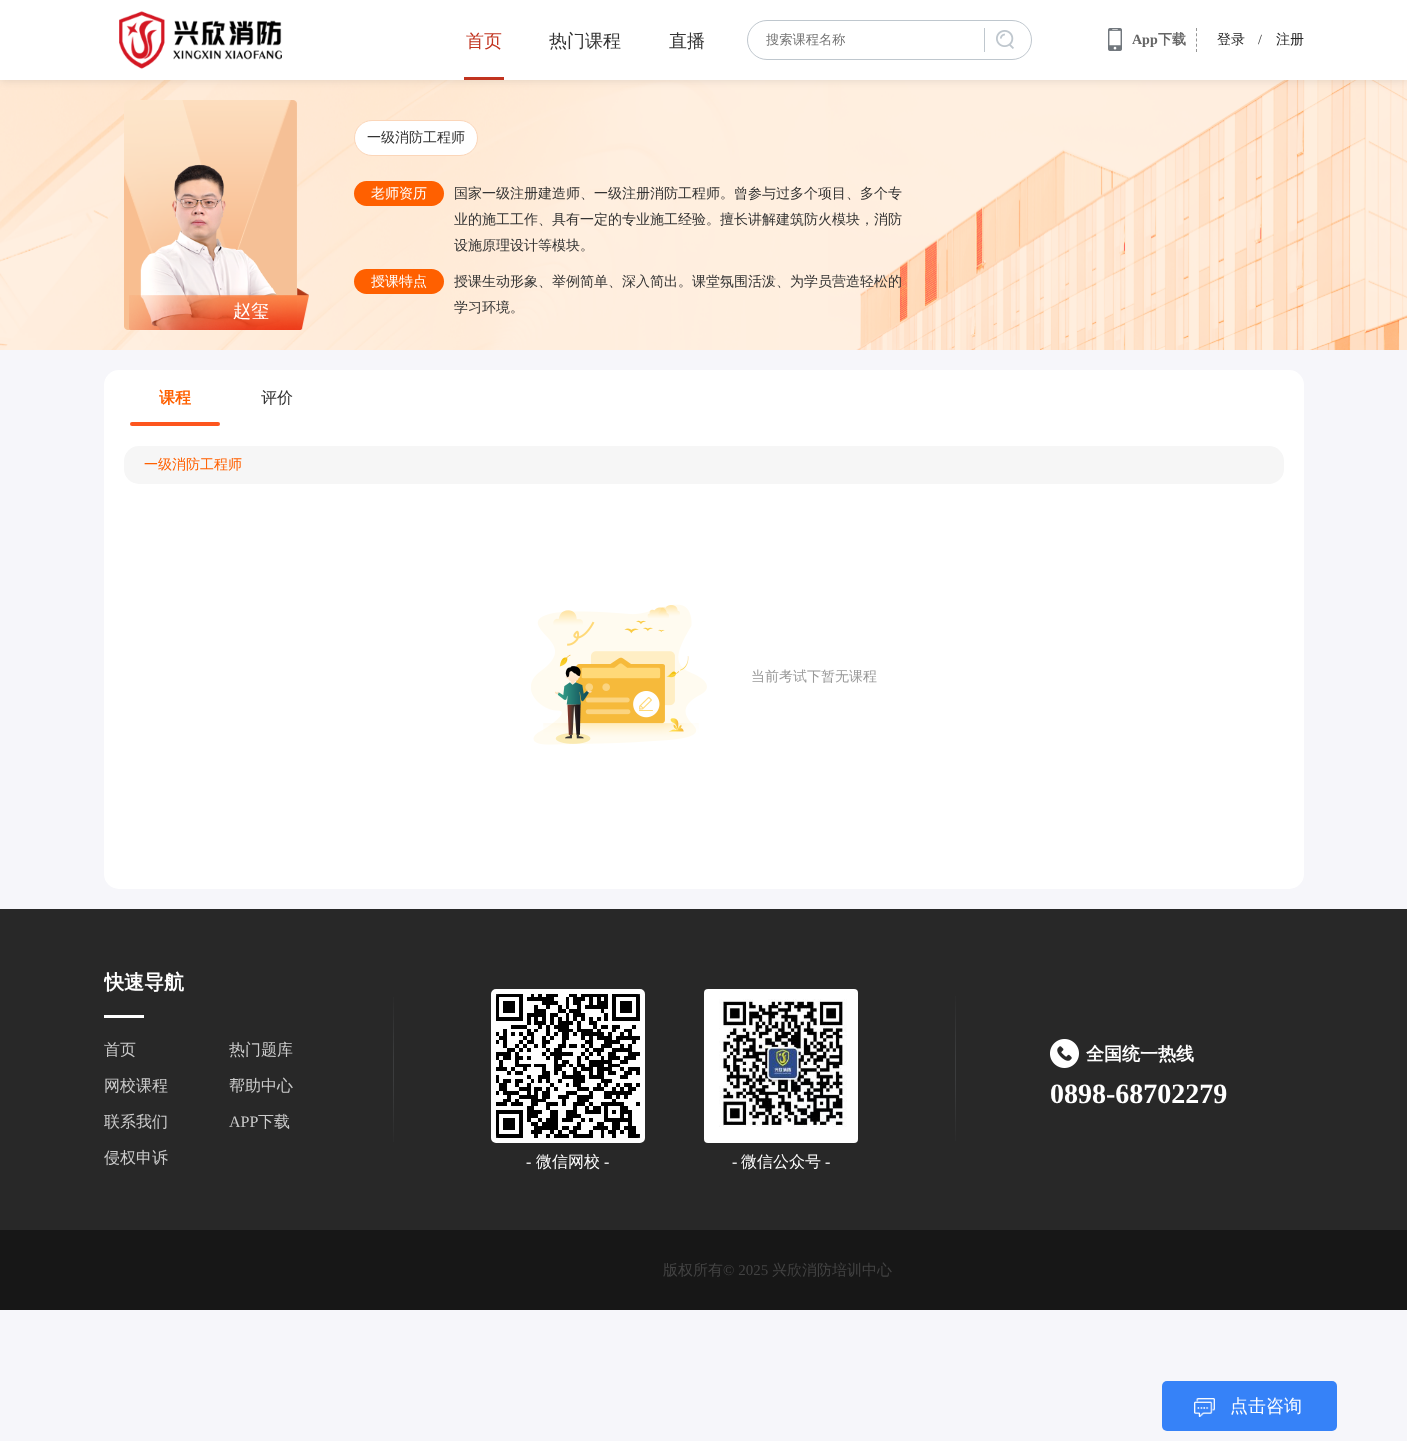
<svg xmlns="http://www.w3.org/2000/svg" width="1407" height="1441">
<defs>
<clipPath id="clip1"><rect x="104" y="909" width="1200" height="321"/></clipPath>
</defs>
<rect width="100%" height="100%" fill="#f6f6fa"/>
<image x="0" y="80" width="1407" height="270" href="media/4.png"/>
<rect width="1407" height="80" fill="#7c7d7940" filter="blur(5px)"/>
<rect width="1407" height="80" fill="#fff"/>
<image x="119" y="11" width="163" height="58" href="media/1.png"/>
<rect x="464" y="77" width="40" height="3" fill="#c1331f"/>
<text x="466" y="47" style="font-family:WenQuanYi Zen Hei;font-size:18px;font-weight:500;fill:#c1331f">首页</text>
<text x="549" y="47" style="font-family:WenQuanYi Zen Hei;font-size:18px;font-weight:500;fill:#333">热门课程</text>
<text x="669" y="47" style="font-family:WenQuanYi Zen Hei;font-size:18px;font-weight:500;fill:#333">直播</text>
<rect x="747.5" y="20.5" width="284" height="39" rx="19.5" fill="none" stroke="#bfc7ce"/>
<rect x="984" y="28" width="1" height="24" fill="#bfc7ce"/>
<text x="766" y="44" style="font-family:WenQuanYi Zen Hei;font-size:13.25px;font-weight:500;fill:#757575">搜索课程名称</text>
<image x="996" y="30" width="18" height="19" href="media/2.png"/>
<path d="M1196.5 28v24" fill="none" stroke="#959595" stroke-dasharray="3 2.25"/>
<image x="1108" y="28" width="14" height="23" href="media/3.png"/>
<text x="1132" y="44" style="font-family:Liberation Serif;font-size:14px;font-weight:bold;fill:#666">App</text>
<text x="1158" y="44" style="font-family:WenQuanYi Zen Hei;font-size:14px;font-weight:bold;fill:#666">下载</text>
<text x="1217" y="44" style="font-family:WenQuanYi Zen Hei;font-size:14px;font-weight:500;fill:#252525">登录</text>
<text x="1258" y="44" style="font-family:Liberation Serif;font-size:14px;fill:#333">/</text>
<text x="1276" y="44" style="font-family:WenQuanYi Zen Hei;font-size:14px;font-weight:500;fill:#252525">注册</text>
<image x="124" y="100" width="173" height="230" href="media/5.png"/>
<image x="140" y="164" width="143" height="166" href="media/6.png"/>
<image x="129" y="288" width="180" height="42" href="media/7.png"/>
<text x="233" y="317" style="font-family:WenQuanYi Zen Hei;font-size:18px;font-weight:500;fill:#fff">赵玺</text>
<rect x="354.5" y="120.5" width="123" height="35" rx="17.5" fill="#fff" stroke="#fbd6b9"/>
<text x="367" y="142" style="font-family:WenQuanYi Zen Hei;font-size:14px;font-weight:500;fill:#333">一级消防工程师</text>
<rect x="354" y="181" width="90" height="25" rx="12.5" fill="#ff6000"/>
<text x="371" y="198" style="font-family:WenQuanYi Zen Hei;font-size:14px;font-weight:500;fill:#fff">老师资历</text>
<text x="454" y="198" style="font-family:WenQuanYi Zen Hei;font-size:14px;font-weight:500;fill:#333">国家一级注册建造师、一级注册消防工程师。曾参与过多个项目、多个专</text>
<text x="454" y="224" style="font-family:WenQuanYi Zen Hei;font-size:14px;font-weight:500;fill:#333">业的施工工作、具有一定的专业施工经验。擅长讲解建筑防火模块，消防</text>
<text x="454" y="250" style="font-family:WenQuanYi Zen Hei;font-size:14px;font-weight:500;fill:#333">设施原理设计等模块。</text>
<rect x="354" y="269" width="90" height="25" rx="12.5" fill="#ff6000"/>
<text x="371" y="286" style="font-family:WenQuanYi Zen Hei;font-size:14px;font-weight:500;fill:#fff">授课特点</text>
<text x="454" y="286" style="font-family:WenQuanYi Zen Hei;font-size:14px;font-weight:500;fill:#333">授课生动形象、举例简单、深入简出。课堂氛围活泼、为学员营造轻松的</text>
<text x="454" y="312" style="font-family:WenQuanYi Zen Hei;font-size:14px;font-weight:500;fill:#333">学习环境。</text>
<rect x="104" y="370" width="1200" height="519" rx="15" fill="#fff"/>
<text x="159" y="403" style="font-family:WenQuanYi Zen Hei;font-size:16px;font-weight:bold;fill:#ff6000">课程</text>
<rect x="130" y="422" width="90" height="4" rx="2" fill="#fd551e"/>
<text x="261" y="403" style="font-family:WenQuanYi Zen Hei;font-size:16px;font-weight:500;fill:#333">评价</text>
<rect x="124" y="446" width="1160" height="38" rx="15" fill="#f6f6f6"/>
<text x="144" y="469" style="font-family:WenQuanYi Zen Hei;font-size:14px;font-weight:500;fill:#ff6000">一级消防工程师</text>
<image x="531" y="604" width="176" height="141" href="media/8.png"/>
<text x="751" y="681" style="font-family:WenQuanYi Zen Hei;font-size:14px;font-weight:500;fill:#999">当前考试下暂无课程</text>
<rect y="909" width="1407" height="321" fill="#282828"/>
<image x="393" y="997" width="1" height="145" href="media/9.png"/>
<g clip-path="url(#clip1)">
<text x="104" y="989" style="font-family:WenQuanYi Zen Hei;font-size:20px;font-weight:bold;fill:#fff">快速导航</text>
</g>
<rect x="104" y="1015" width="40" height="3" fill="#fff"/>
<text x="104" y="1055" style="font-family:WenQuanYi Zen Hei;font-size:16px;font-weight:500;fill:#cbcbcb">首页</text>
<text x="229" y="1055" style="font-family:WenQuanYi Zen Hei;font-size:16px;font-weight:500;fill:#cbcbcb">热门题库</text>
<text x="104" y="1091" style="font-family:WenQuanYi Zen Hei;font-size:16px;font-weight:500;fill:#cbcbcb">网校课程</text>
<text x="229" y="1091" style="font-family:WenQuanYi Zen Hei;font-size:16px;font-weight:500;fill:#cbcbcb">帮助中心</text>
<text x="104" y="1127" style="font-family:WenQuanYi Zen Hei;font-size:16px;font-weight:500;fill:#cbcbcb">联系我们</text>
<text x="229" y="1127" style="font-family:Liberation Serif;font-size:16px;fill:#cbcbcb">APP</text>
<text x="258" y="1127" style="font-family:WenQuanYi Zen Hei;font-size:16px;font-weight:500;fill:#cbcbcb">下载</text>
<text x="104" y="1163" style="font-family:WenQuanYi Zen Hei;font-size:16px;font-weight:500;fill:#cbcbcb">侵权申诉</text>
<image x="1050" y="1039" width="29" height="29" href="media/10.png"/>
<text x="1086" y="1060" style="font-family:WenQuanYi Zen Hei;font-size:18px;font-weight:bold;fill:#fff">全国统一热线</text>
<text x="1050" y="1103" style="font-family:Liberation Serif;font-size:28px;font-weight:bold;fill:#fff">0898-68702279</text>
<image x="955" y="996" width="1" height="145" href="media/9.png"/>
<rect x="493.5" y="991.5" width="149" height="149" rx="2.5" fill="none" stroke="#fff" stroke-width="5"/>
<image x="496" y="994" width="144" height="144" href="media/11.png"/>
<text x="526" y="1167" style="font-family:Liberation Serif;font-size:16px;fill:#fff">-</text>
<text x="536" y="1167" style="font-family:WenQuanYi Zen Hei;font-size:16px;font-weight:500;fill:#fff">微信网校</text>
<text x="604" y="1167" style="font-family:Liberation Serif;font-size:16px;fill:#fff">-</text>
<image x="704" y="989" width="154" height="154" href="media/12.png"/>
<text x="732" y="1167" style="font-family:Liberation Serif;font-size:16px;fill:#fff">-</text>
<text x="741" y="1167" style="font-family:WenQuanYi Zen Hei;font-size:16px;font-weight:500;fill:#fff">微信公众号</text>
<text x="825" y="1167" style="font-family:Liberation Serif;font-size:16px;fill:#fff">-</text>
<rect y="1230" width="1407" height="80" fill="#171717"/>
<text x="663" y="1275" style="font-family:WenQuanYi Zen Hei;font-size:15px;font-weight:500;fill:#434343">版权所有</text>
<text x="723" y="1275" style="font-family:Liberation Serif;font-size:15px;fill:#434343">© 2025</text>
<text x="772" y="1275" style="font-family:WenQuanYi Zen Hei;font-size:15px;font-weight:500;fill:#434343">兴欣消防培训中心</text>
<rect x="1162" y="1381" width="175" height="50" rx="5" fill="#3682f8"/>
<image x="1194" y="1398" width="21" height="19" href="media/13.png"/>
<text x="1230" y="1412" style="font-family:WenQuanYi Zen Hei;font-size:18px;font-weight:500;fill:#fff">点击咨询</text>
</svg>
